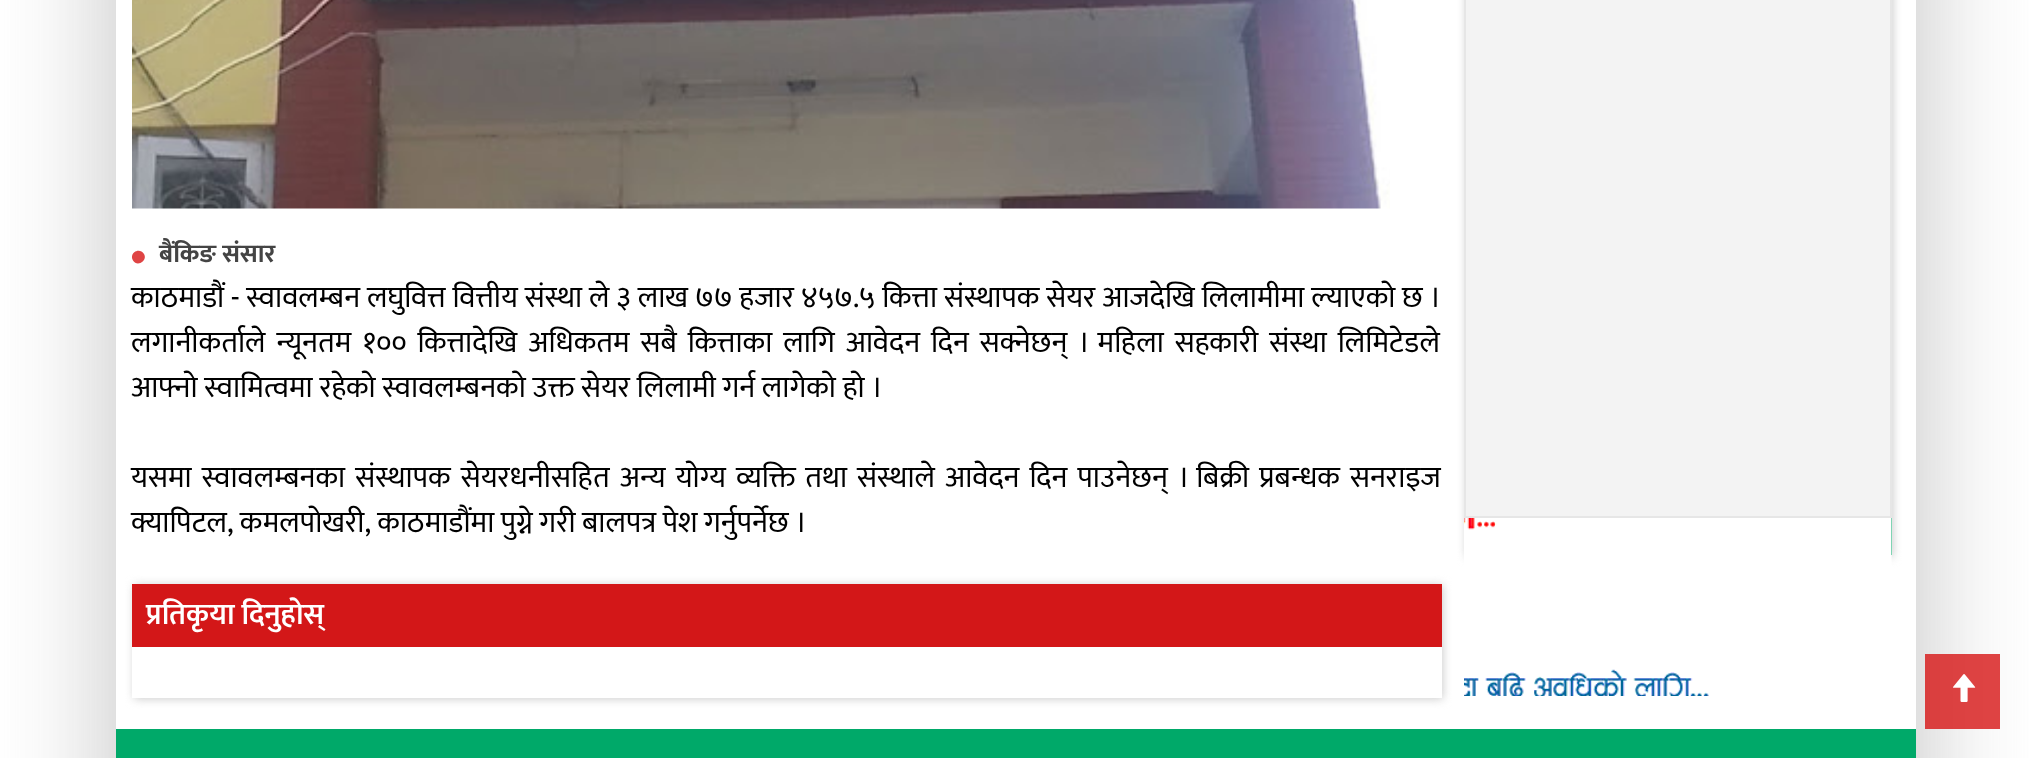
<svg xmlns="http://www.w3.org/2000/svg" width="2029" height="758">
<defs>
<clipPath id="clip1"><path d="M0 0h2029v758h-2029zm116-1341h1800v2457h-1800z" clip-rule="evenodd"/></clipPath>
<clipPath id="clip2"><path d="M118 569h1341v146h-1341zm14 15h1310v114h-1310z" clip-rule="evenodd"/></clipPath>
</defs>
<rect width="100%" height="100%" fill="#fff"/>
<g clip-path="url(#clip1)">
<rect x="116" y="-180" width="1800" height="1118" fill="#c1c1c1" filter="blur(60px)"/>
</g>
<image x="132" y="0" width="1258" height="209" href="media/1.png"/>
<path d="M144 254c4 7-7 13.5-11 6.5c-4.5-7.5 6.5-14 11-6.5z" fill="#df4444"/>
<text x="159" y="262" style="font-family:Mukta;font-size:25.5px;font-weight:bold;fill:#444">बैंकिङ संसार</text>
<text x="131" y="307" word-spacing="0.2" style="font-family:Mukta;font-size:30px;fill:#000">काठमाडौं - स्वावलम्बन लघुवित्त वित्तीय संस्था ले ३ लाख ७७ हजार ४५७.५ कित्ता संस्थापक सेयर आजदेखि लिलामीमा ल्याएको</text>
<text x="1402" y="307" style="font-family:Mukta;font-size:30px;fill:#000">छ ।</text>
<text x="131" y="352" word-spacing="4.25" style="font-family:Mukta;font-size:30px;fill:#000">लगानीकर्ताले न्यूनतम १०० कित्तादेखि अधिकतम सबै कित्ताका लागि आवेदन दिन सक्नेछन् । महिला सहकारी संस्था लिमिटेडले</text>
<text x="131" y="397" style="font-family:Mukta;font-size:30px;fill:#000">आफ्नो स्वामित्वमा रहेको स्वावलम्बनको उक्त सेयर लिलामी गर्न लागेको हो ।</text>
<text x="131" y="487" word-spacing="3.4" style="font-family:Mukta;font-size:30px;fill:#000">यसमा स्वावलम्बनका संस्थापक सेयरधनीसहित अन्य योग्य व्यक्ति तथा संस्थाले आवेदन दिन पाउनेछन् । बिक्री प्रबन्धक सनराइज</text>
<text x="131" y="532" word-spacing="-0.25" style="font-family:Mukta;font-size:30px;fill:#000">क्यापिटल, कमलपोखरी, काठमाडौंमा पुग्ने गरी बालपत्र पेश गर्नुपर्नेछ ।</text>
<g clip-path="url(#clip2)">
<rect x="134" y="585" width="1309" height="114" fill="#ccc" filter="blur(5px)"/>
</g>
<rect x="132" y="584" width="1310" height="63" fill="#d31718"/>
<text x="146" y="624" style="font-family:Mukta;font-size:30px;font-weight:600;fill:#fff">प्रतिकृया दिनुहोस्</text>
<rect x="1466" y="-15" width="427" height="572" fill="#ccc" filter="blur(5px)"/>
<rect x="1891" y="518" width="1" height="37" fill="#00a969"/>
<rect x="1465" y="-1" width="426" height="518" fill="#f3f3f3" stroke="#e6e6e6" stroke-width="2"/>
<image x="1464" y="518" width="428" height="178" href="media/2.png"/>
<rect x="116" y="729" width="1800" height="29" fill="#00a969"/>
<rect x="1925" y="654" width="75" height="75" fill="#d61010c7"/>
<image x="1953" y="674" width="23" height="28" href="media/3.png"/>
</svg>
